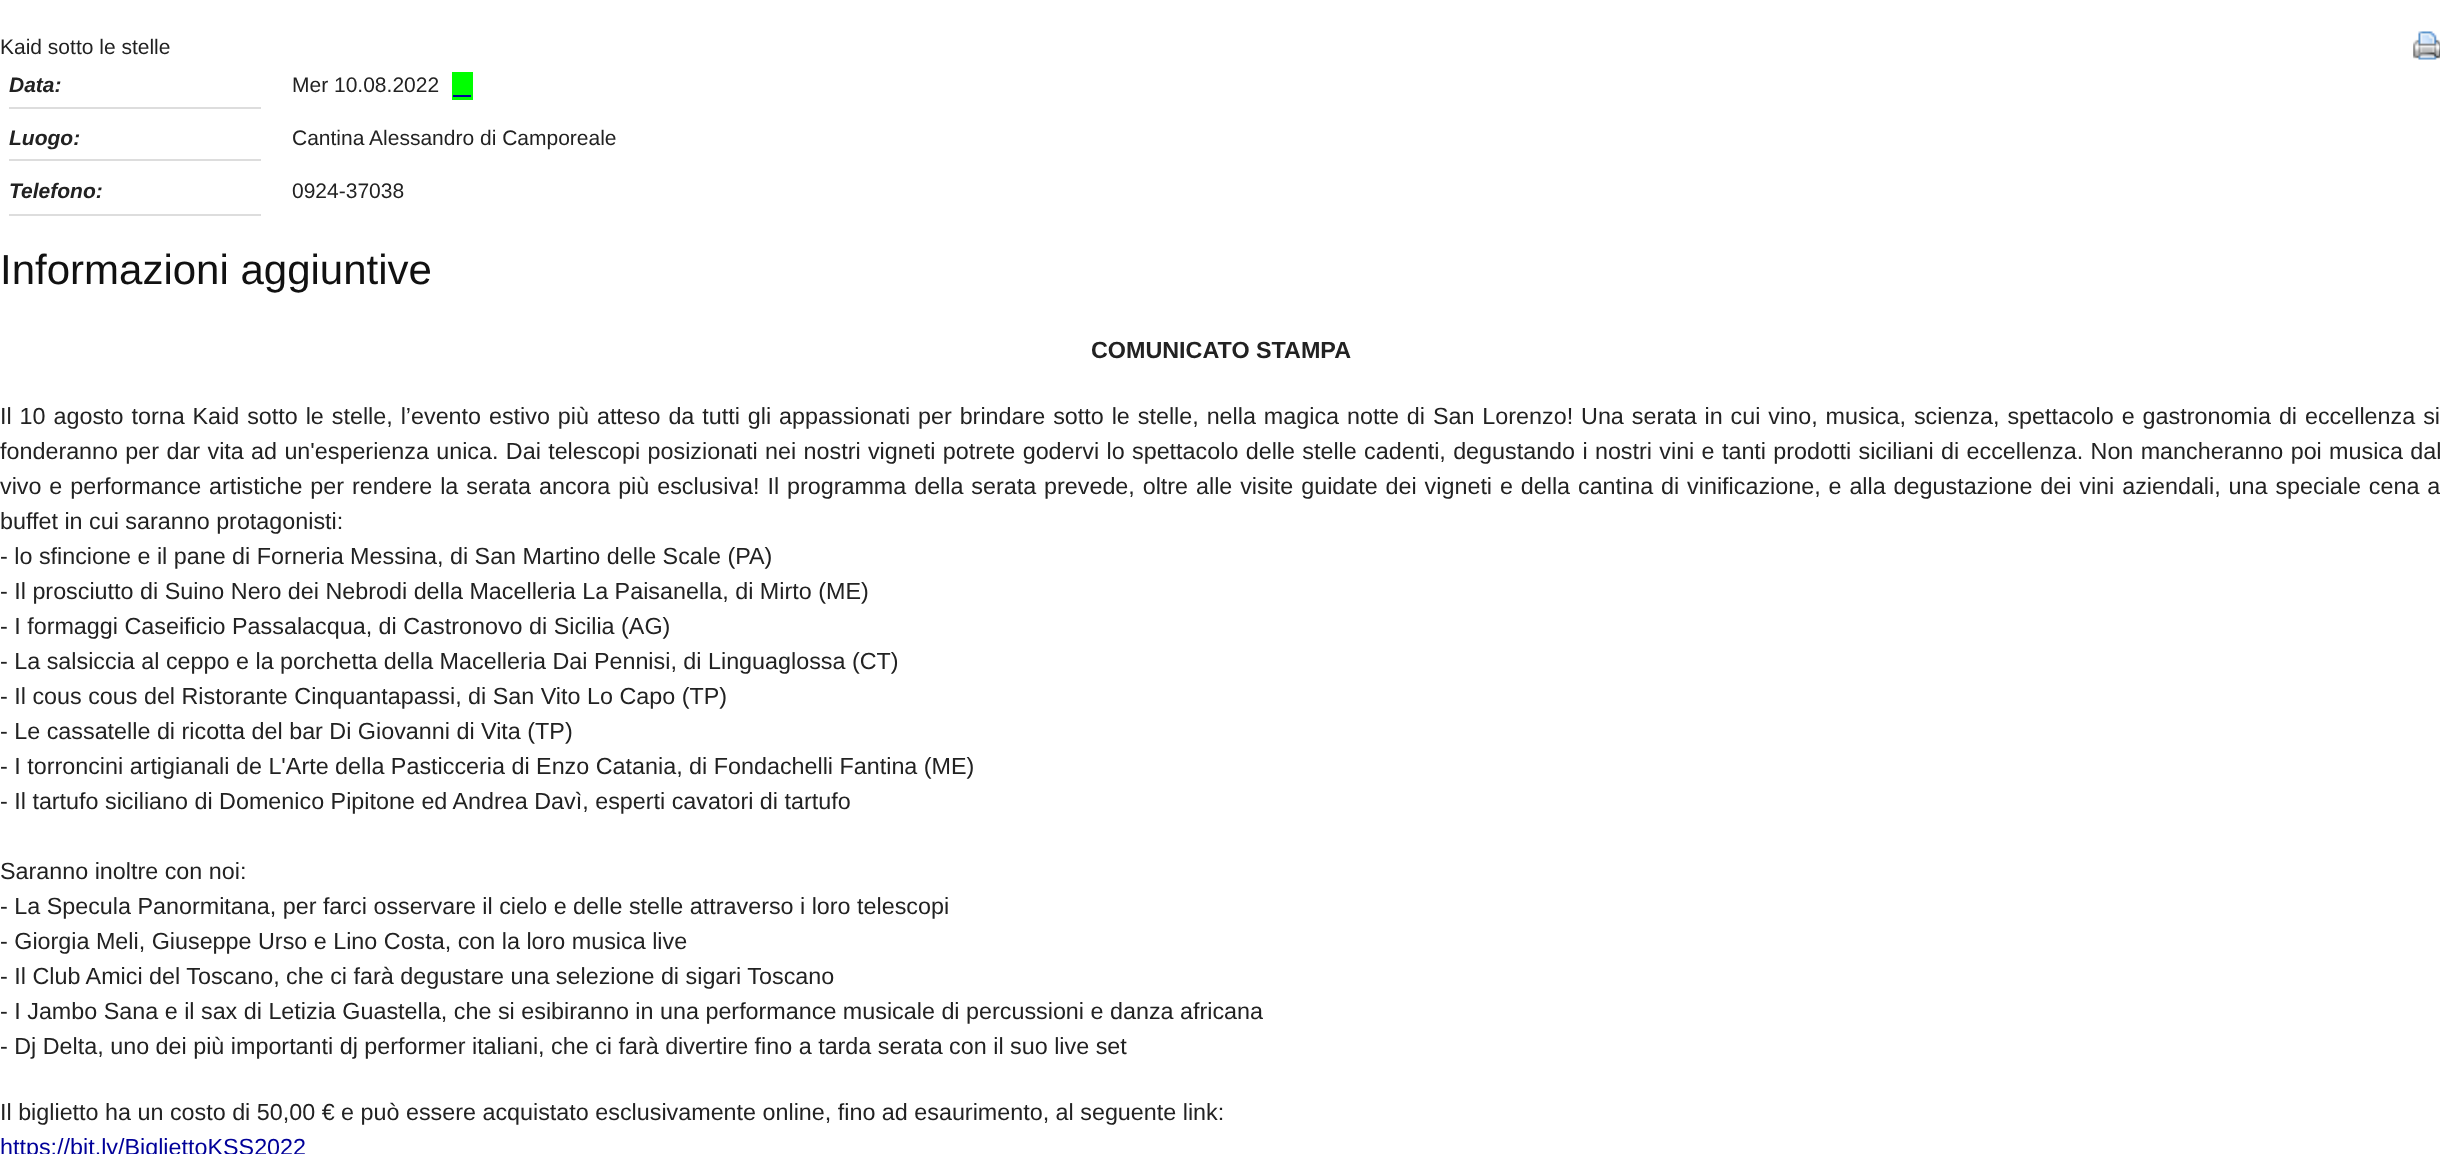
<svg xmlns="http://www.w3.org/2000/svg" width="2440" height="1154">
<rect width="100%" height="100%" fill="#fff"/>
<text x="0" y="54" style="font-family:Liberation Sans;font-size:21px;fill:#222">Kaid sotto le stelle</text>
<image x="2413" y="31" width="27" height="29" href="media/1.png"/>
<rect x="9" y="107" width="252" height="2" fill="#ddd"/>
<text x="9" y="92" style="font-family:Liberation Sans;font-size:21px;font-weight:bold;font-style:italic;fill:#222">Data:</text>
<text x="292" y="92" style="font-family:Liberation Sans;font-size:21px;fill:#222">Mer 10.08.2022</text>
<rect x="452" y="72" width="21" height="28" fill="#0f0"/>
<rect x="453" y="95" width="18" height="2" fill="#009"/>
<rect x="9" y="159" width="252" height="2" fill="#ddd"/>
<text x="9" y="145" style="font-family:Liberation Sans;font-size:21px;font-weight:bold;font-style:italic;fill:#222">Luogo:</text>
<text x="292" y="145" style="font-family:Liberation Sans;font-size:21px;fill:#222">Cantina Alessandro di Camporeale</text>
<rect x="9" y="214" width="252" height="2" fill="#ddd"/>
<text x="9" y="198" style="font-family:Liberation Sans;font-size:21px;font-weight:bold;font-style:italic;fill:#222">Telefono:</text>
<text x="292" y="198" style="font-family:Liberation Sans;font-size:21px;fill:#222">0924-37038</text>
<text x="0" y="284" style="font-family:Liberation Sans;font-size:42px;fill:#111">Informazioni aggiuntive</text>
<text x="1091" y="358" style="font-family:Liberation Sans;font-size:23.33px;font-weight:bold;fill:#222">COMUNICATO STAMPA</text>
<text x="0" y="424" word-spacing="1.45" style="font-family:Liberation Sans;font-size:23.33px;fill:#222">Il 10 agosto torna Kaid sotto le stelle, l’evento estivo più atteso da tutti gli appassionati per brindare sotto le stelle, nella magica notte di San Lorenzo! Una serata in cui vino, musica, scienza, spettacolo e gastronomia di eccellenza si</text>
<text x="0" y="459" word-spacing="0.85" style="font-family:Liberation Sans;font-size:23.33px;fill:#222">fonderanno per dar vita ad un'esperienza unica. Dai telescopi posizionati nei nostri vigneti potrete godervi lo spettacolo delle stelle cadenti, degustando i nostri vini e tanti prodotti siciliani di eccellenza. Non mancheranno poi musica dal</text>
<text x="0" y="494" word-spacing="1.4" style="font-family:Liberation Sans;font-size:23.33px;fill:#222">vivo e performance artistiche per rendere la serata ancora più esclusiva! Il programma della serata prevede, oltre alle visite guidate dei vigneti e della cantina di vinificazione, e alla degustazione dei vini aziendali, una speciale cena a</text>
<text x="0" y="529" style="font-family:Liberation Sans;font-size:23.33px;fill:#222">buffet in cui saranno protagonisti:</text>
<text x="0" y="564" style="font-family:Liberation Sans;font-size:23.33px;fill:#222">- lo sfincione e il pane di Forneria Messina, di San Martino delle Scale (PA)</text>
<text x="0" y="599" style="font-family:Liberation Sans;font-size:23.33px;fill:#222">- Il prosciutto di Suino Nero dei Nebrodi della Macelleria La Paisanella, di Mirto (ME)</text>
<text x="0" y="634" style="font-family:Liberation Sans;font-size:23.33px;fill:#222">- I formaggi Caseificio Passalacqua, di Castronovo di Sicilia (AG)</text>
<text x="0" y="669" style="font-family:Liberation Sans;font-size:23.33px;fill:#222">- La salsiccia al ceppo e la porchetta della Macelleria Dai Pennisi, di Linguaglossa (CT)</text>
<text x="0" y="704" style="font-family:Liberation Sans;font-size:23.33px;fill:#222">- Il cous cous del Ristorante Cinquantapassi, di San Vito Lo Capo (TP)</text>
<text x="0" y="739" style="font-family:Liberation Sans;font-size:23.33px;fill:#222">- Le cassatelle di ricotta del bar Di Giovanni di Vita (TP)</text>
<text x="0" y="774" style="font-family:Liberation Sans;font-size:23.33px;fill:#222">- I torroncini artigianali de L'Arte della Pasticceria di Enzo Catania, di Fondachelli Fantina (ME)</text>
<text x="0" y="809" style="font-family:Liberation Sans;font-size:23.33px;fill:#222">- Il tartufo siciliano di Domenico Pipitone ed Andrea Davì, esperti cavatori di tartufo</text>
<text x="0" y="879" style="font-family:Liberation Sans;font-size:23.33px;fill:#222">Saranno inoltre con noi:</text>
<text x="0" y="914" style="font-family:Liberation Sans;font-size:23.33px;fill:#222">- La Specula Panormitana, per farci osservare il cielo e delle stelle attraverso i loro telescopi</text>
<text x="0" y="949" style="font-family:Liberation Sans;font-size:23.33px;fill:#222">- Giorgia Meli, Giuseppe Urso e Lino Costa, con la loro musica live</text>
<text x="0" y="984" style="font-family:Liberation Sans;font-size:23.33px;fill:#222">- Il Club Amici del Toscano, che ci farà degustare una selezione di sigari Toscano</text>
<text x="0" y="1019" style="font-family:Liberation Sans;font-size:23.33px;fill:#222">- I Jambo Sana e il sax di Letizia Guastella, che si esibiranno in una performance musicale di percussioni e danza africana</text>
<text x="0" y="1054" style="font-family:Liberation Sans;font-size:23.33px;fill:#222">- Dj Delta, uno dei più importanti dj performer italiani, che ci farà divertire fino a tarda serata con il suo live set</text>
<text x="0" y="1120" style="font-family:Liberation Sans;font-size:23.33px;fill:#222">Il biglietto ha un costo di 50,00 € e può essere acquistato esclusivamente online, fino ad esaurimento, al seguente link:</text>
<text x="0" y="1155" style="font-family:Liberation Sans;font-size:23.33px;fill:#009">https://bit.ly/BigliettoKSS2022</text>
</svg>
